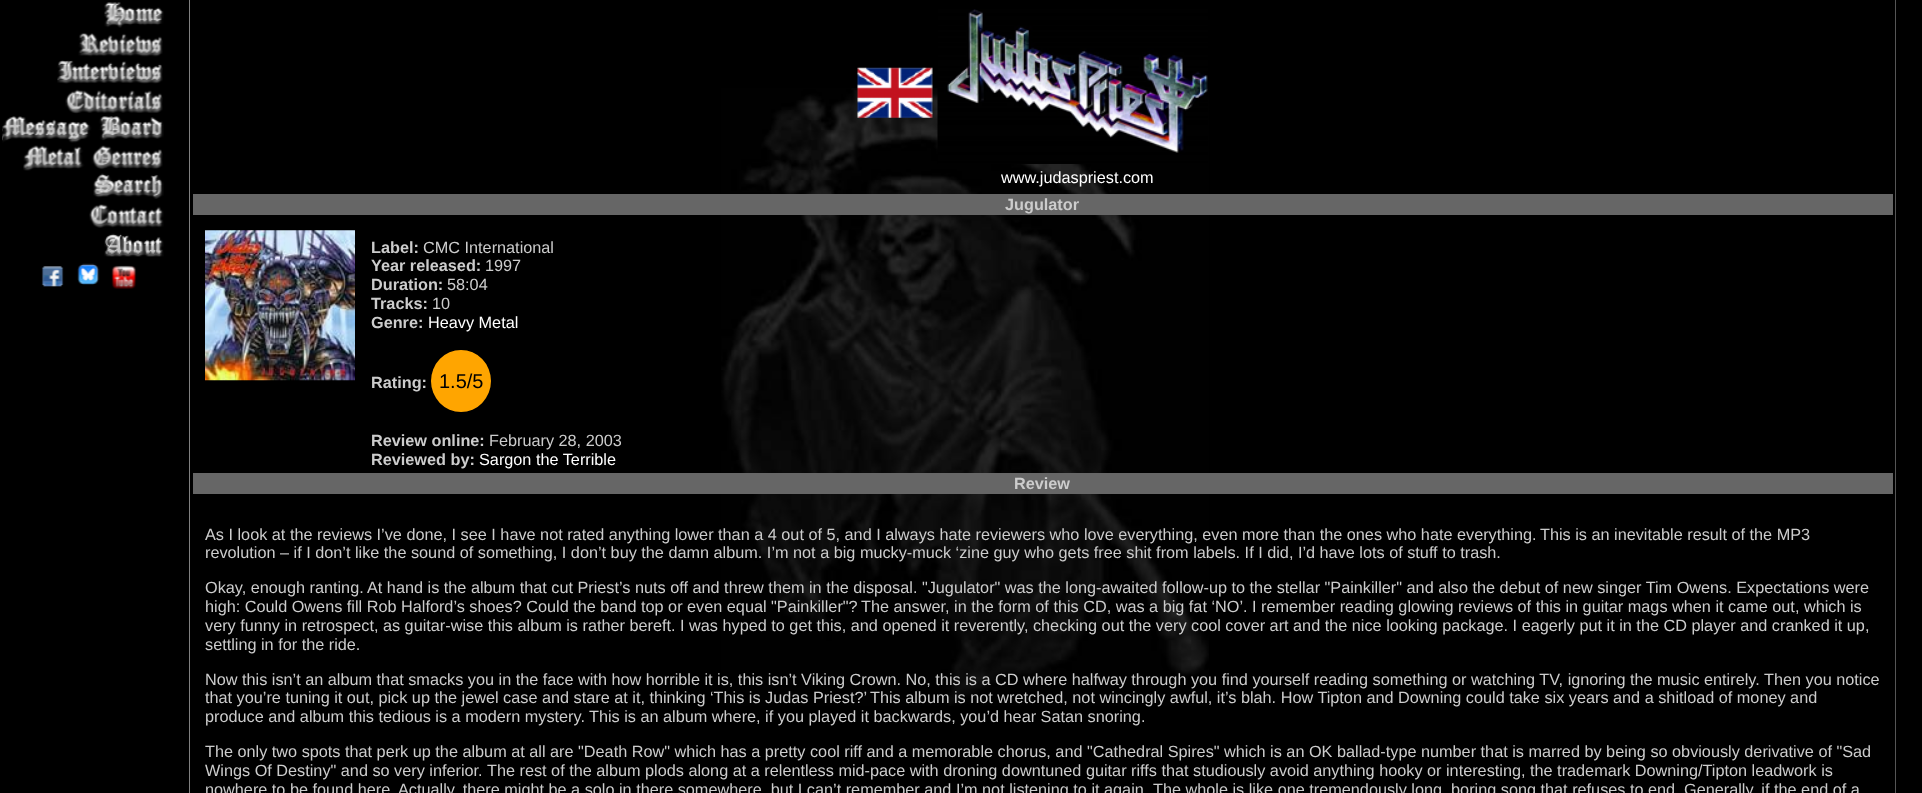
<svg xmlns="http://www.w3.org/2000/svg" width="1922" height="793">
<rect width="100%" height="100%" fill="#000"/>
<image x="721" y="88" width="488" height="618" href="media/1.png"/>
<image x="104" y="2" width="59" height="1" href="media/2.png"/>
<image x="104" y="3" width="60" height="25" href="media/3.png"/>
<image x="78" y="31" width="85" height="26" href="media/4.png"/>
<image x="57" y="60" width="105" height="1" href="media/5.png"/>
<image x="57" y="61" width="106" height="23" href="media/6.png"/>
<image x="65" y="88" width="98" height="26" href="media/7.png"/>
<image x="2" y="118" width="1" height="24" href="media/8.png"/>
<image x="2" y="116" width="162" height="27" href="media/9.png"/>
<image x="23" y="145" width="140" height="26" href="media/10.png"/>
<image x="93" y="173" width="71" height="26" href="media/11.png"/>
<image x="89" y="204" width="75" height="24" href="media/12.png"/>
<image x="104" y="233" width="60" height="24" href="media/13.png"/>
<image x="41" y="266" width="23" height="21" href="media/14.png"/>
<image x="77" y="263" width="23" height="22" href="media/15.png"/>
<image x="111" y="265" width="26" height="24" href="media/16.png"/>
<rect x="1895" width="1" height="793" fill="#555"/>
<rect x="189" width="1" height="793" fill="#808080"/>
<image x="857" y="67" width="76" height="51" href="media/17.png"/>
<image x="937" y="9" width="271" height="155" href="media/18.png"/>
<text x="1001" y="183" style="font-family:Liberation Sans;font-size:16.25px;fill:#fff">www.judaspriest.com</text>
<rect x="193" y="194" width="1700" height="21" fill="#666"/>
<text x="1005" y="210" style="font-family:Liberation Sans;font-size:16.25px;font-weight:bold;fill:#ccc">Jugulator</text>
<image x="205" y="230" width="150" height="151" href="media/19.png"/>
<text x="371" y="253" style="font-family:Liberation Sans;font-size:16.25px;font-weight:bold;fill:#ccc">Label:</text>
<text x="423" y="253" style="font-family:Liberation Sans;font-size:16.25px;fill:#ccc">CMC International</text>
<text x="371" y="271" style="font-family:Liberation Sans;font-size:16.25px;font-weight:bold;fill:#ccc">Year released:</text>
<text x="485" y="271" style="font-family:Liberation Sans;font-size:16.25px;fill:#ccc">1997</text>
<text x="371" y="290" style="font-family:Liberation Sans;font-size:16.25px;font-weight:bold;fill:#ccc">Duration:</text>
<text x="447" y="290" style="font-family:Liberation Sans;font-size:16.25px;fill:#ccc">58:04</text>
<text x="371" y="309" style="font-family:Liberation Sans;font-size:16.25px;font-weight:bold;fill:#ccc">Tracks:</text>
<text x="432" y="309" style="font-family:Liberation Sans;font-size:16.25px;fill:#ccc">10</text>
<text x="371" y="328" style="font-family:Liberation Sans;font-size:16.25px;font-weight:bold;fill:#ccc">Genre:</text>
<text x="428" y="328" style="font-family:Liberation Sans;font-size:16.25px;fill:#fff">Heavy Metal</text>
<text x="371" y="388" style="font-family:Liberation Sans;font-size:16.25px;font-weight:bold;fill:#ccc">Rating:</text>
<ellipse cx="461" cy="381" rx="30" ry="31" fill="#ffa500"/>
<text x="439" y="388" style="font-family:Liberation Sans;font-size:20px;fill:#000">1.5/5</text>
<text x="371" y="446" style="font-family:Liberation Sans;font-size:16.25px;font-weight:bold;fill:#ccc">Review online:</text>
<text x="489" y="446" style="font-family:Liberation Sans;font-size:16.25px;fill:#ccc">February 28, 2003</text>
<text x="371" y="465" style="font-family:Liberation Sans;font-size:16.25px;font-weight:bold;fill:#ccc">Reviewed by:</text>
<text x="479" y="465" style="font-family:Liberation Sans;font-size:16.25px;fill:#fff">Sargon the Terrible</text>
<rect x="193" y="473" width="1700" height="21" fill="#666"/>
<text x="1014" y="489" style="font-family:Liberation Sans;font-size:16.25px;font-weight:bold;fill:#ccc">Review</text>
<text x="205" y="540" style="font-family:Liberation Sans;font-size:16.25px;fill:#ccc">As I look at the reviews I’ve done, I see I have not rated anything lower than a 4 out of 5, and I always hate reviewers who love everything, even more than the ones who hate everything.</text>
<text x="1540" y="540" style="font-family:Liberation Sans;font-size:16.25px;fill:#ccc">This is an inevitable result of the MP3</text>
<text x="205" y="558" style="font-family:Liberation Sans;font-size:16.25px;fill:#ccc">revolution – if I don’t like the sound of something, I don’t buy the damn album. I’m not a big mucky-muck ‘zine guy who gets free shit from labels. If I did, I’d have lots of stuff to trash.</text>
<text x="205" y="593" style="font-family:Liberation Sans;font-size:16.25px;fill:#ccc">Okay, enough ranting.</text>
<text x="367" y="593" style="font-family:Liberation Sans;font-size:16.25px;fill:#ccc">At hand is the album that cut Priest’s nuts off and threw them in the disposal. "Jugulator" was the long-awaited follow-up to the stellar "Painkiller" and also the debut of new singer Tim Owens. Expectations were</text>
<text x="205" y="612" style="font-family:Liberation Sans;font-size:16.25px;fill:#ccc">high: Could Owens fill Rob Halford’s shoes? Could the band top or even equal "Painkiller"?</text>
<text x="861" y="612" style="font-family:Liberation Sans;font-size:16.25px;fill:#ccc">The answer, in the form of this CD, was a big fat ‘NO’. I remember reading glowing reviews of this in guitar mags when it came out, which is</text>
<text x="205" y="631" style="font-family:Liberation Sans;font-size:16.25px;fill:#ccc">very funny in retrospect, as guitar-wise this album is rather bereft. I was hyped to get this, and opened it reverently, checking out the very cool cover art and the nice looking package. I eagerly put it in the CD player and cranked it up,</text>
<text x="205" y="650" style="font-family:Liberation Sans;font-size:16.25px;fill:#ccc">settling in for the ride.</text>
<text x="205" y="685" style="font-family:Liberation Sans;font-size:16.25px;fill:#ccc">Now this isn’t an album that smacks you in the face with how horrible it is, this isn’t Viking Crown. No, this is a CD where halfway through you find yourself reading something or watching TV, ignoring the music entirely.</text>
<text x="1764" y="685" style="font-family:Liberation Sans;font-size:16.25px;fill:#ccc">Then you notice</text>
<text x="205" y="703" style="font-family:Liberation Sans;font-size:16.25px;fill:#ccc">that you’re tuning it out, pick up the jewel case and stare at it, thinking ‘This is Judas Priest?’</text>
<text x="870" y="703" style="font-family:Liberation Sans;font-size:16.25px;fill:#ccc">This album is not wretched, not wincingly awful, it’s blah. How Tipton and Downing could take six years and a shitload of money and</text>
<text x="205" y="722" style="font-family:Liberation Sans;font-size:16.25px;fill:#ccc">produce and album this tedious is a modern mystery.</text>
<text x="589" y="722" style="font-family:Liberation Sans;font-size:16.25px;fill:#ccc">This is an album where, if you played it backwards, you’d hear Satan snoring.</text>
<text x="205" y="757" style="font-family:Liberation Sans;font-size:16.25px;fill:#ccc">The only two spots that perk up the album at all are "Death Row" which has a pretty cool riff and a memorable chorus, and "Cathedral Spires" which is an OK ballad-type number that is marred by being so obviously derivative of "Sad</text>
<text x="205" y="776" style="font-family:Liberation Sans;font-size:16.25px;fill:#ccc">Wings Of Destiny" and so very inferior.</text>
<text x="487" y="776" style="font-family:Liberation Sans;font-size:16.25px;fill:#ccc">The rest of the album plods along at a relentless mid-pace with droning downtuned guitar riffs that studiously avoid anything hooky or interesting, the trademark Downing/Tipton leadwork is</text>
<text x="205" y="795" style="font-family:Liberation Sans;font-size:16.25px;fill:#ccc">nowhere to be found here</text>
<text x="398" y="795" style="font-family:Liberation Sans;font-size:16.25px;fill:#ccc">Actually, there might be a solo in there somewhere, but I can’t remember and I’m not listening to it again</text>
<text x="1153" y="795" style="font-family:Liberation Sans;font-size:16.25px;fill:#ccc">The whole is like one tremendously long, boring song that refuses to end</text>
<text x="1684" y="795" style="font-family:Liberation Sans;font-size:16.25px;fill:#ccc">Generally, if the end of a</text>
</svg>
